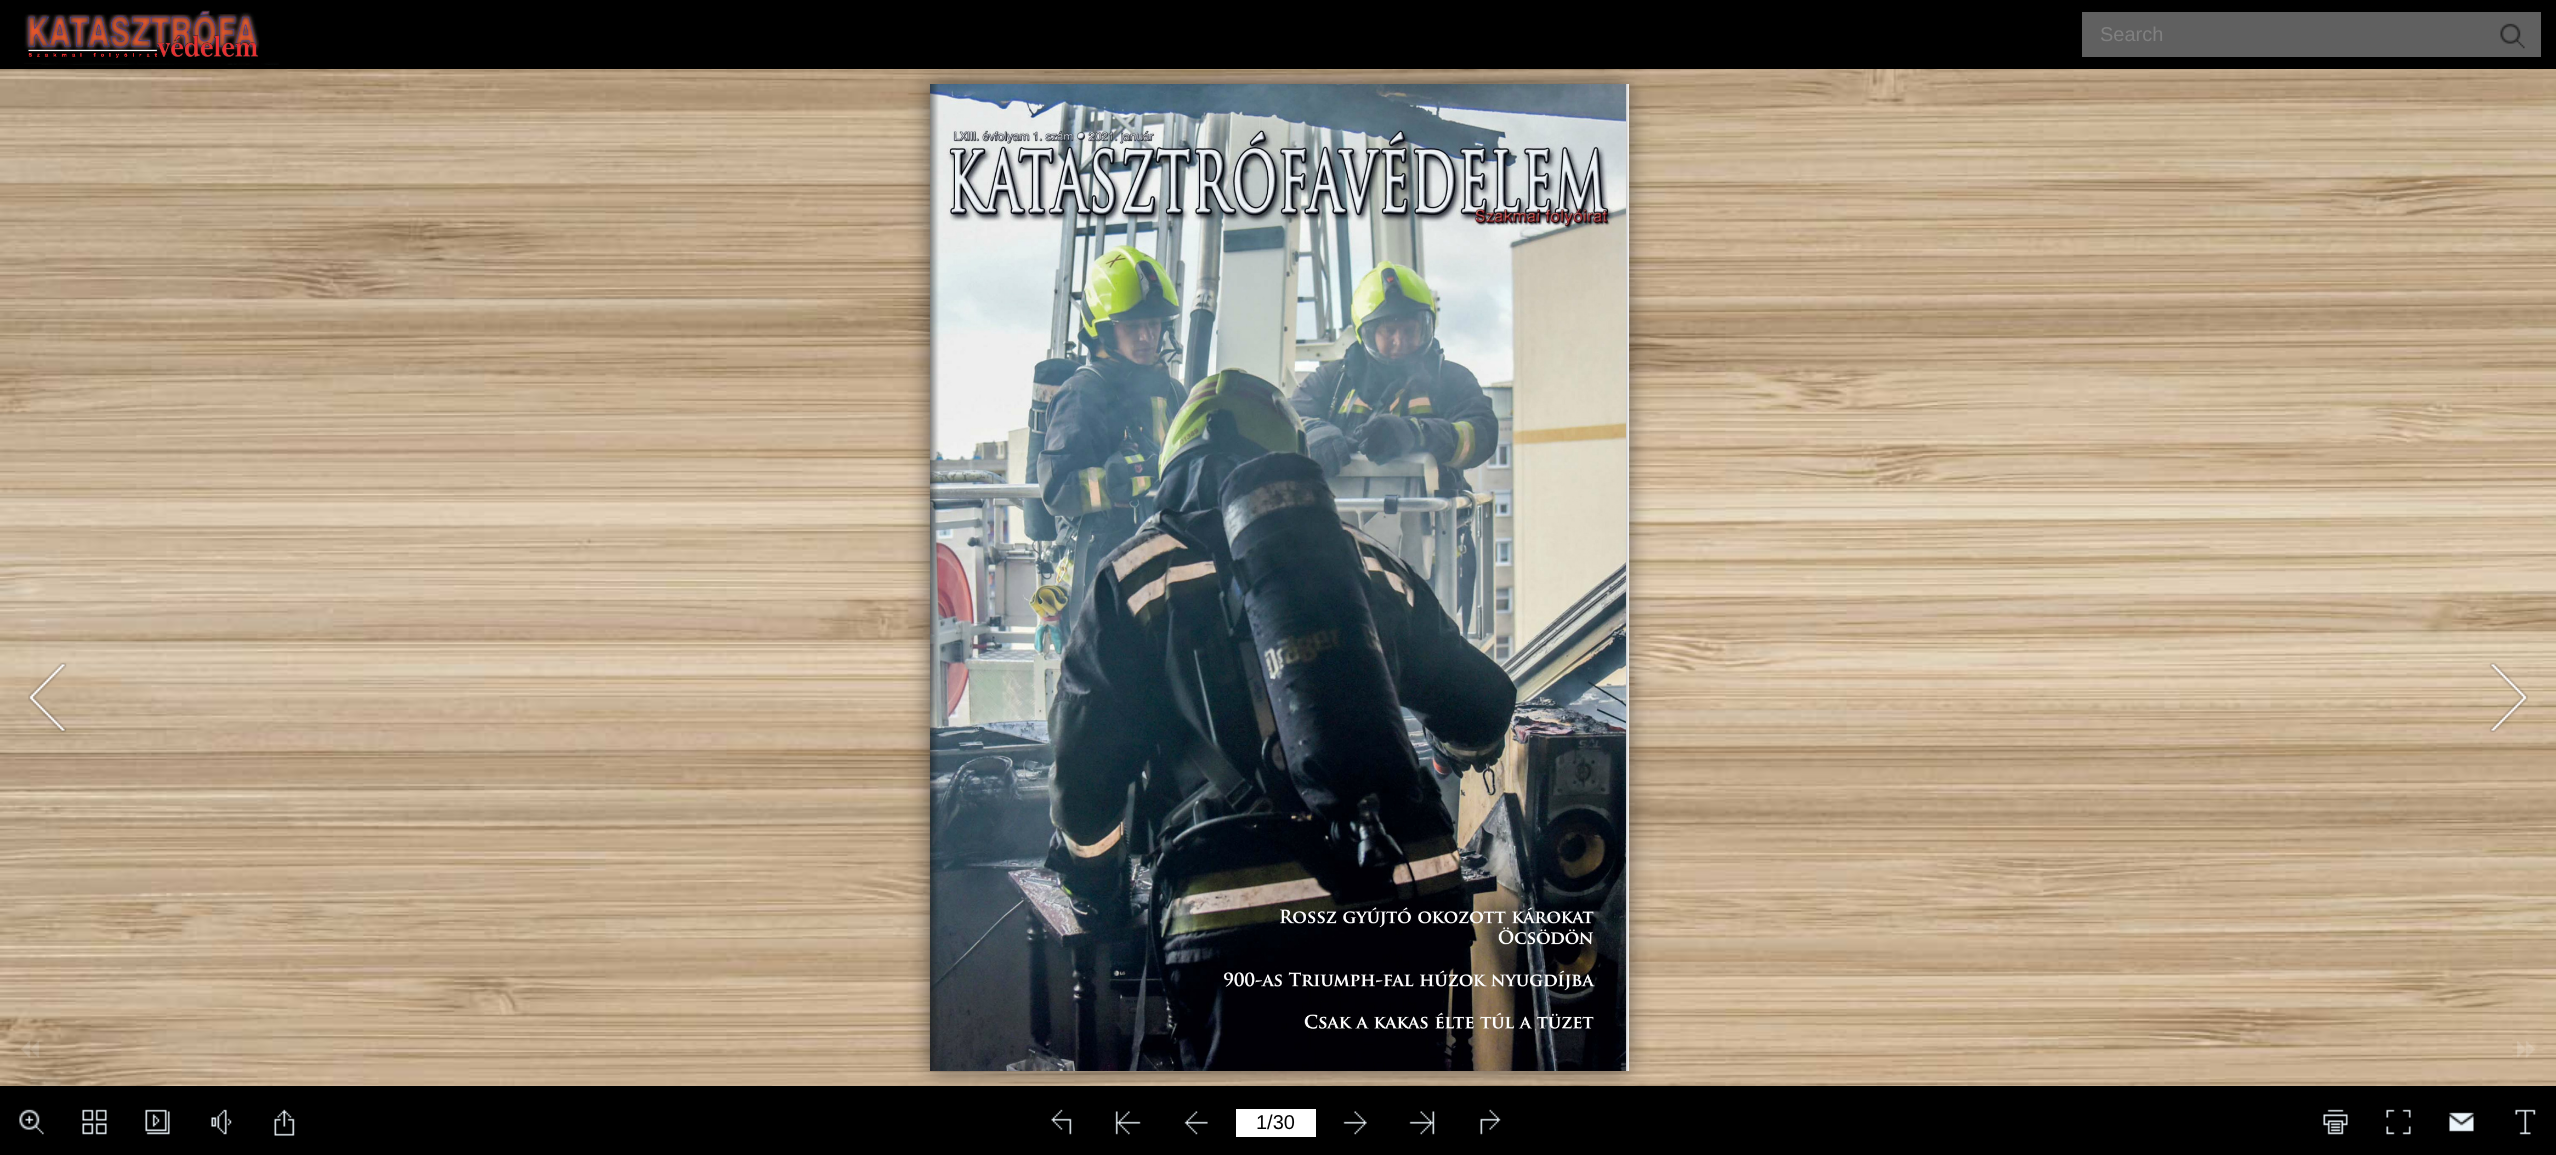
<svg xmlns="http://www.w3.org/2000/svg" width="2556" height="1155">
<rect width="100%" height="100%" fill="#fff"/>
<image x="0" y="69" width="2556" height="1017" href="media/5.png"/>
<rect x="930" y="84" width="698" height="987" fill="#282828b3" filter="blur(11px)"/>
<rect width="2556" height="69" fill="#000"/>
<image x="24" y="10" width="255" height="55" href="media/1.png"/>
<rect x="2082" y="12" width="459" height="45" fill="#606060"/>
<text x="2100" y="41" style="font-family:Liberation Sans;font-size:20px;fill:#808080">Search</text>
<image x="2500" y="23" width="25" height="26" href="media/2.png"/>
<image x="930" y="84" width="696" height="987" href="media/3.png"/>
<rect x="1626" y="84" width="2" height="987" fill="#ccc"/>
<image x="1627" y="84" width="2" height="987" href="media/4.png"/>
<image x="28" y="662" width="39" height="71" href="media/6.png"/>
<image x="2489" y="662" width="39" height="71" href="media/7.png"/>
<image x="21" y="1041" width="19" height="17" href="media/8.png"/>
<image x="2517" y="1041" width="18" height="17" href="media/9.png"/>
<rect y="1086" width="2556" height="69" fill="#000"/>
<image x="19" y="1109" width="25" height="26" href="media/10.png"/>
<image x="82" y="1109" width="25" height="26" href="media/11.png"/>
<image x="145" y="1109" width="25" height="26" href="media/12.png"/>
<image x="211" y="1109" width="21" height="26" href="media/13.png"/>
<image x="274" y="1109" width="21" height="27" href="media/14.png"/>
<image x="1051" y="1109" width="21" height="26" href="media/15.png"/>
<image x="1115" y="1111" width="26" height="24" href="media/16.png"/>
<image x="1184" y="1111" width="24" height="24" href="media/17.png"/>
<rect x="1236" y="1109" width="80" height="28" fill="#fff"/>
<text x="1256" y="1129" style="font-family:Liberation Sans;font-size:20px;fill:#000">1/30</text>
<image x="1343" y="1111" width="24" height="24" href="media/18.png"/>
<image x="1409" y="1111" width="26" height="24" href="media/19.png"/>
<image x="1480" y="1109" width="21" height="26" href="media/20.png"/>
<image x="2323" y="1109" width="25" height="26" href="media/21.png"/>
<image x="2386" y="1109" width="25" height="26" href="media/22.png"/>
<image x="2449" y="1112" width="25" height="20" href="media/23.png"/>
<image x="2515" y="1109" width="21" height="26" href="media/24.png"/>
</svg>
